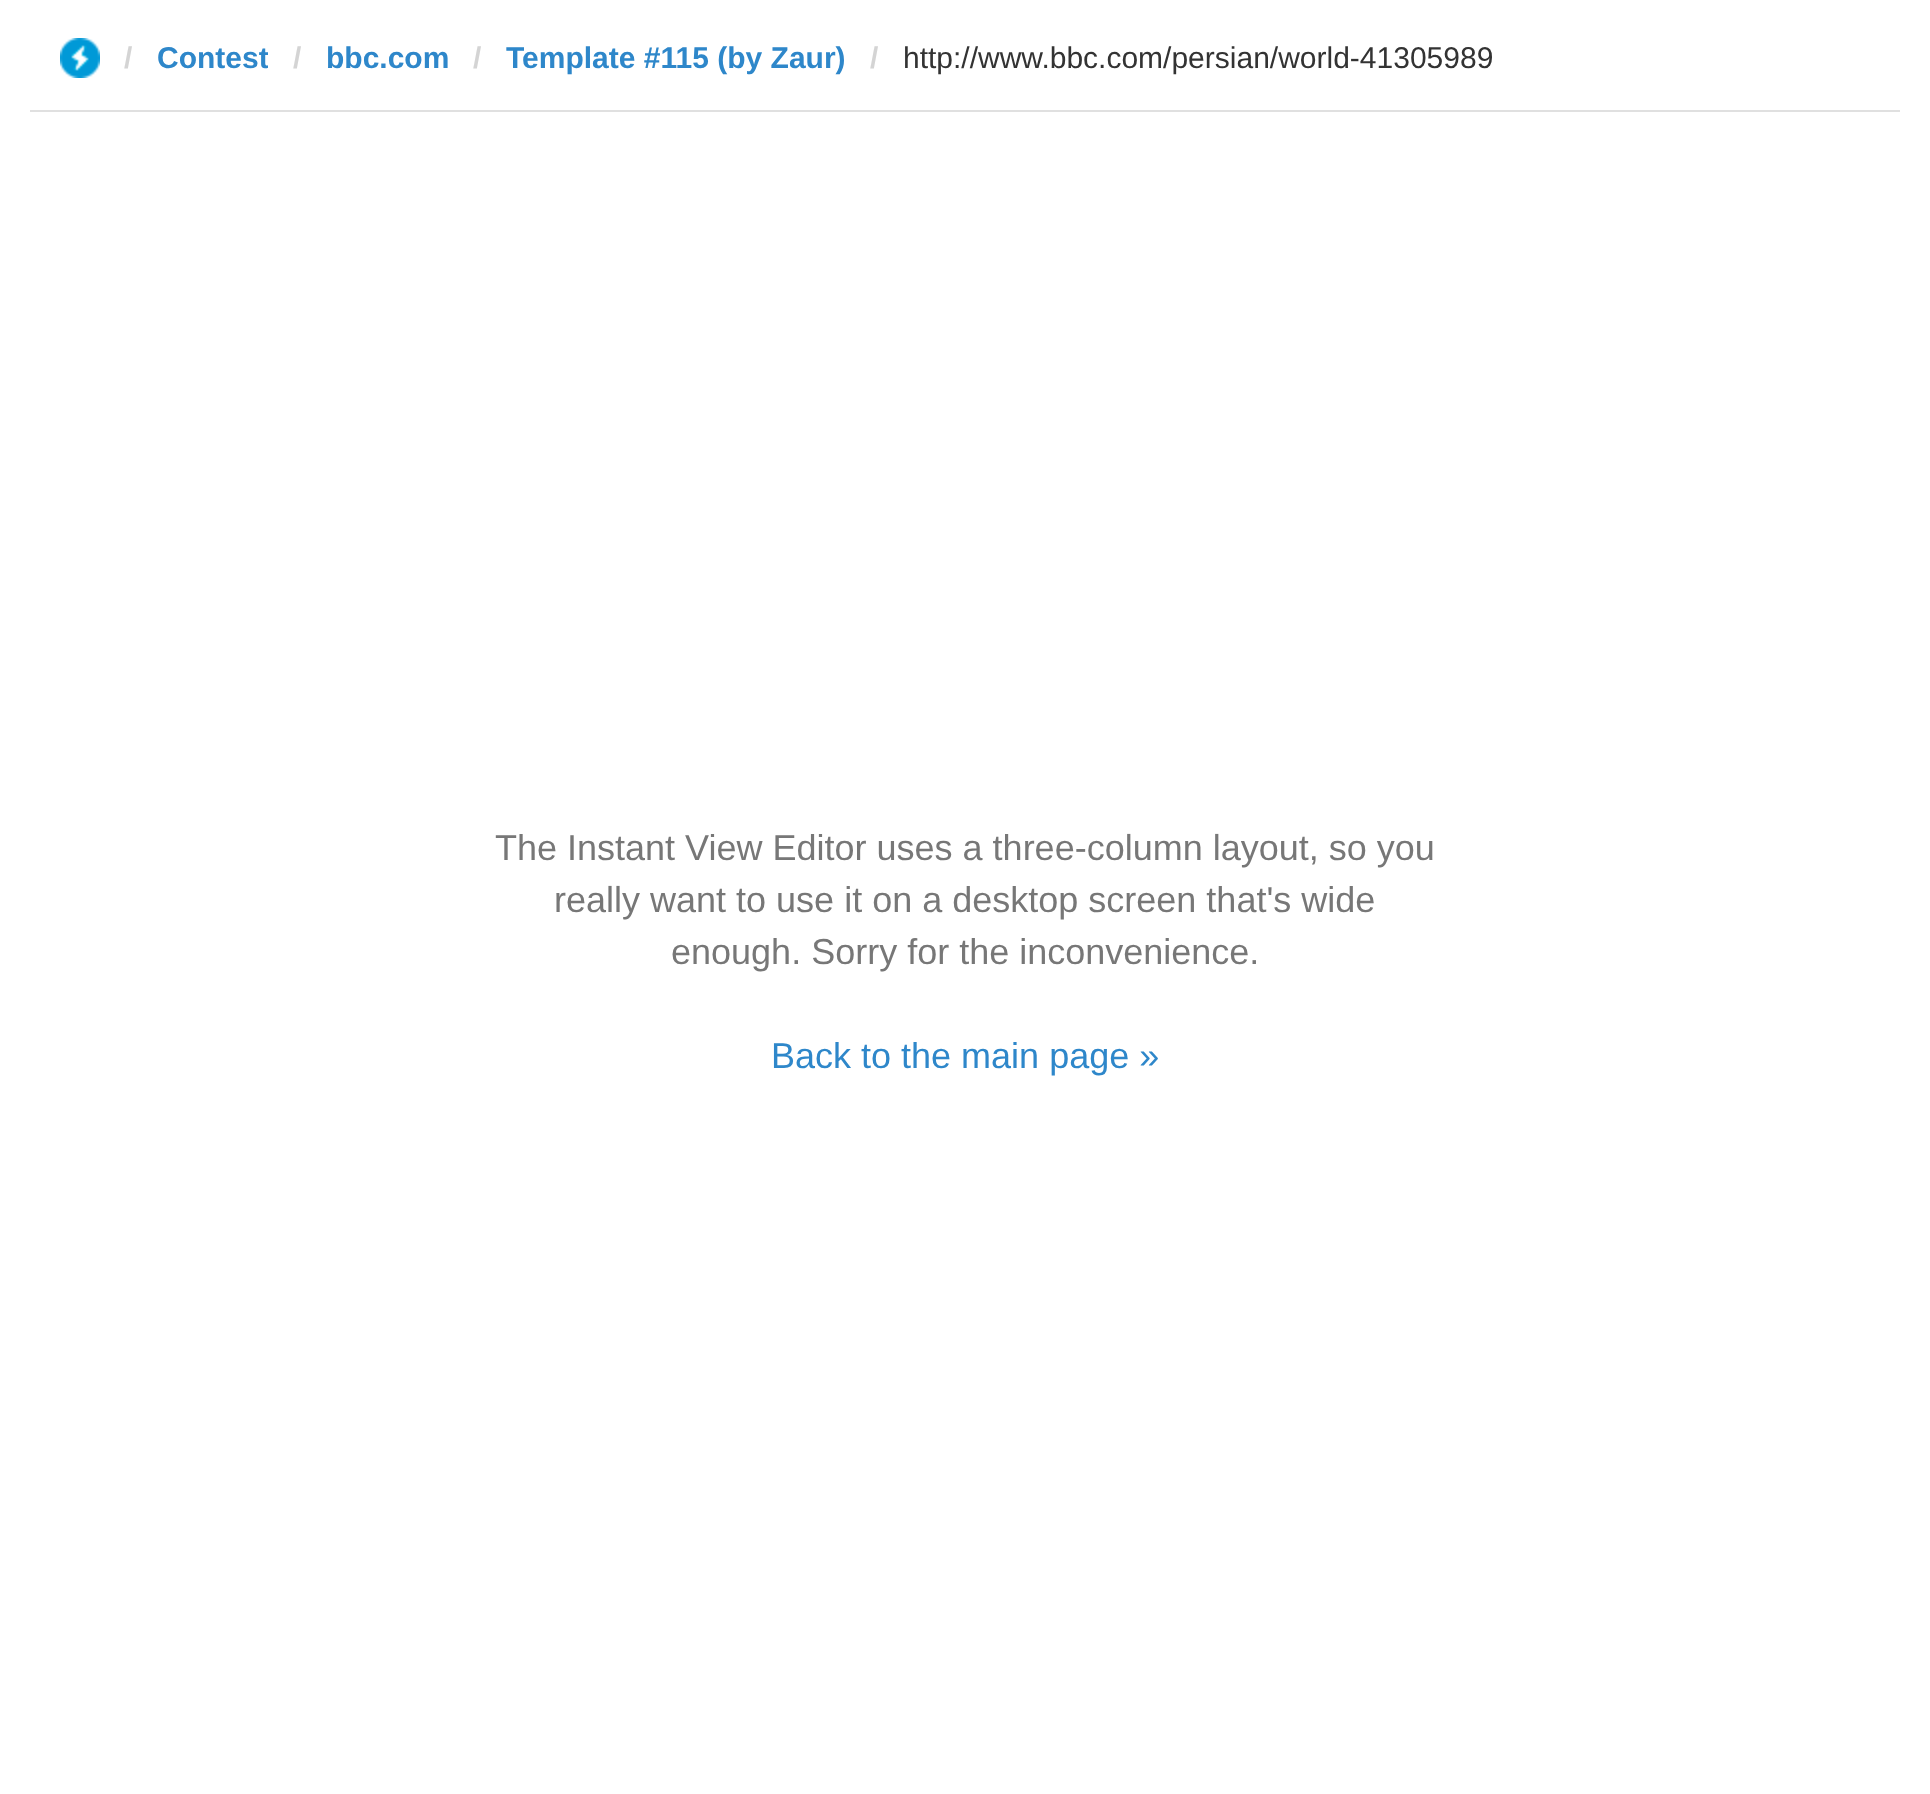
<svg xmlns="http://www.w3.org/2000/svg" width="1930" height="1794">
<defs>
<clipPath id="clip1"><rect x="158" y="38" width="110" height="40"/></clipPath>
</defs>
<rect width="100%" height="100%" fill="#fff"/>
<rect x="30" y="110" width="1870" height="2" fill="#e0e0e0"/>
<image x="60" y="38" width="40" height="40" href="media/1.png"/>
<text x="124" y="68" style="font-family:Liberation Sans;font-size:30px;font-weight:bold;fill:#d4d4d4">/</text>
<g clip-path="url(#clip1)">
<text x="157" y="68" style="font-family:Liberation Sans;font-size:30px;font-weight:bold;fill:#2e87ca">Contest</text>
</g>
<text x="293" y="68" style="font-family:Liberation Sans;font-size:30px;font-weight:bold;fill:#d4d4d4">/</text>
<text x="326" y="68" style="font-family:Liberation Sans;font-size:30px;font-weight:bold;fill:#2e87ca">bbc.com</text>
<text x="473" y="68" style="font-family:Liberation Sans;font-size:30px;font-weight:bold;fill:#d4d4d4">/</text>
<text x="506" y="68" style="font-family:Liberation Sans;font-size:30px;font-weight:bold;fill:#2e87ca">Template #115 (by Zaur)</text>
<text x="870" y="68" style="font-family:Liberation Sans;font-size:30px;font-weight:bold;fill:#d4d4d4">/</text>
<text x="903" y="68" style="font-family:Liberation Sans;font-size:30px;fill:#333">http://www.bbc.com/persian/world-41305989</text>
<text x="495" y="860" style="font-family:Liberation Sans;font-size:36px;fill:#777">The Instant View Editor uses a three-column layout, so you</text>
<text x="554" y="912" style="font-family:Liberation Sans;font-size:36px;fill:#777">really want to use it on a desktop screen that's wide</text>
<text x="671" y="964" style="font-family:Liberation Sans;font-size:36px;fill:#777">enough. Sorry for the inconvenience.</text>
<text x="771" y="1068" style="font-family:Liberation Sans;font-size:36px;fill:#2e87ca">Back to the main page »</text>
</svg>
